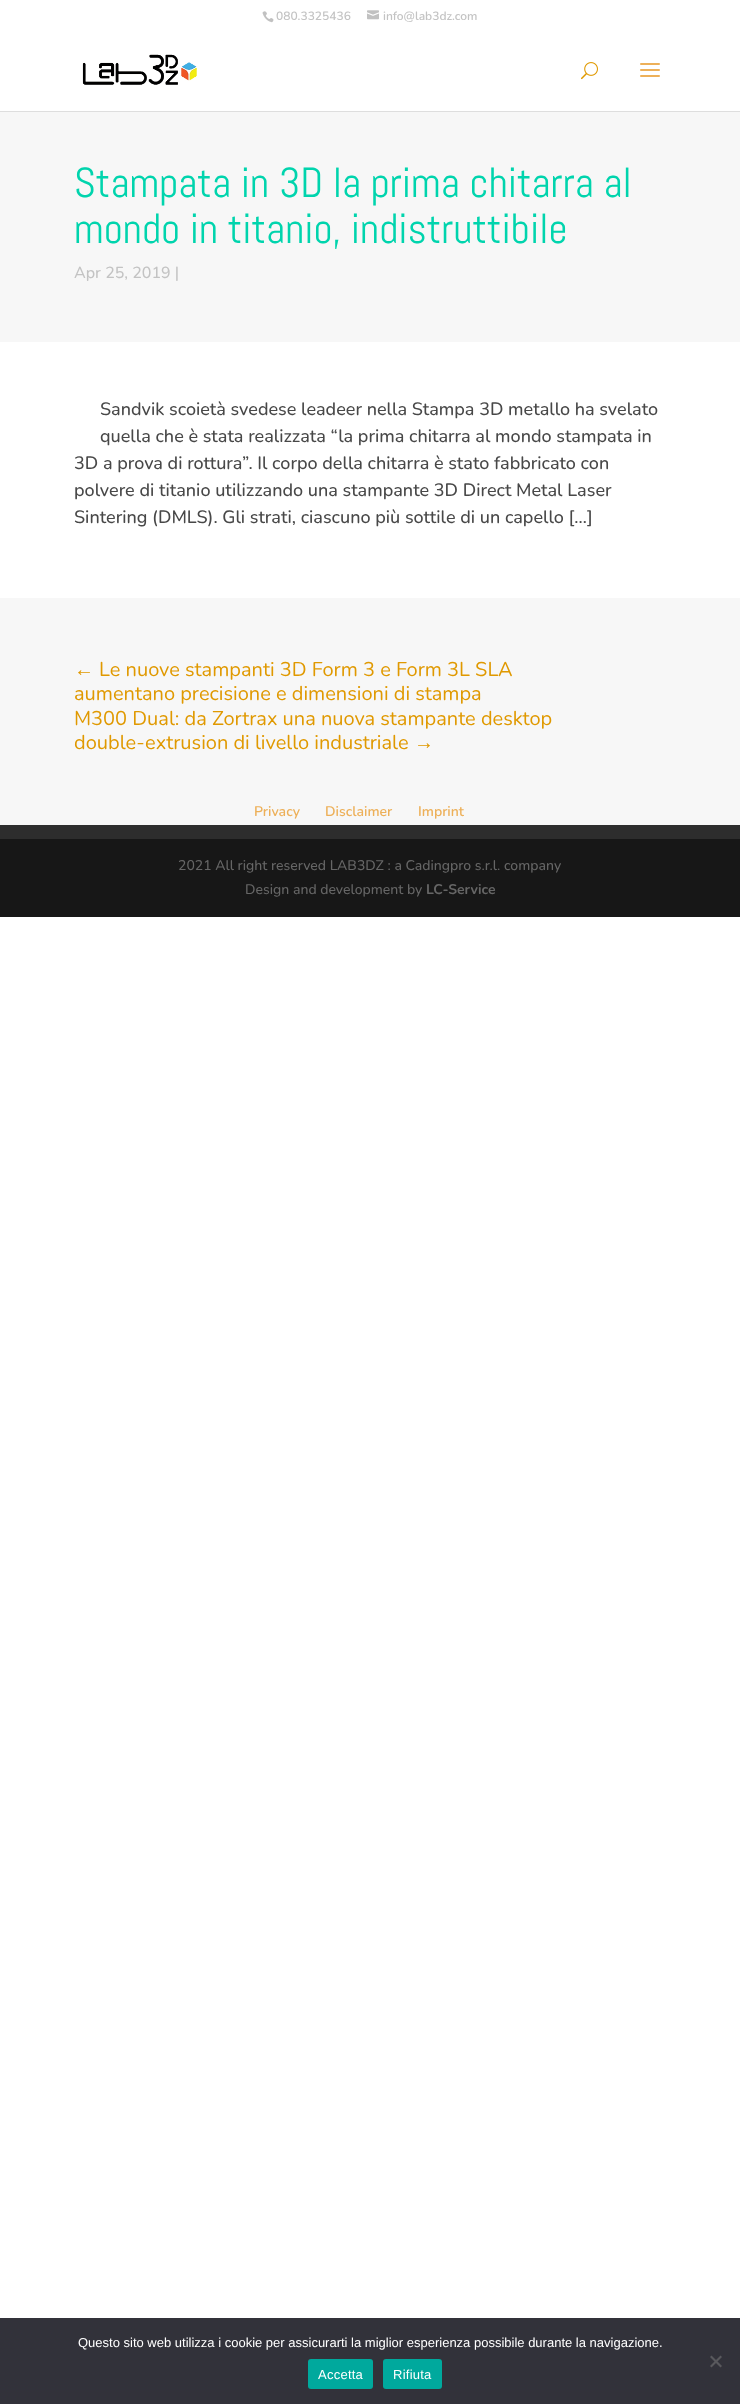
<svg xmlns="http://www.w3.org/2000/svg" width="740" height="2404">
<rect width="100%" height="100%" fill="#fff"/>
<image x="262" y="11" width="12" height="12" href="media/1.png"/>
<text x="276" y="20" style="font-family:'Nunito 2';font-size:12px;font-weight:200;fill:#c3c3c3">080.3325436</text>
<image x="367" y="10" width="12" height="10" href="media/2.png"/>
<text x="383" y="20" style="font-family:'Nunito 2';font-size:12px;font-weight:200;fill:#c3c3c3">info@lab3dz.com</text>
<rect y="111" width="740" height="1" fill="#dedede"/>
<image x="82" y="54" width="115" height="31" href="media/3.png"/>
<image x="581" y="62" width="17" height="18" href="media/4.png"/>
<image x="640" y="63" width="20" height="14" href="media/5.png"/>
<rect y="112" width="740" height="230" fill="#f7f7f7"/>
<text x="74" y="197" style="font-family:Abel;font-size:42px;fill:#00d4ad">Stampata in 3D la prima chitarra al</text>
<text x="74" y="243" style="font-family:Abel;font-size:42px;fill:#00d4ad">mondo in titanio, indistruttibile</text>
<text x="74" y="278" style="font-family:Nunito;font-size:16px;font-weight:200;fill:#c3c3c3">Apr 25, 2019 |</text>
<text x="100" y="415" style="font-family:Nunito;font-size:18px;font-weight:200;fill:#484848">Sandvik scoietà svedese leadeer nella Stampa 3D metallo ha svelato</text>
<text x="100" y="442" style="font-family:Nunito;font-size:18px;font-weight:200;fill:#484848">quella che è stata realizzata “la prima chitarra al mondo stampata in</text>
<text x="74" y="469" style="font-family:Nunito;font-size:18px;font-weight:200;fill:#484848">3D a prova di rottura”. Il corpo della chitarra è stato fabbricato con</text>
<text x="74" y="496" style="font-family:Nunito;font-size:18px;font-weight:200;fill:#484848">polvere di titanio utilizzando una stampante 3D Direct Metal Laser</text>
<text x="74" y="523" style="font-family:Nunito;font-size:18px;font-weight:200;fill:#484848">Sintering (DMLS). Gli strati, ciascuno più sottile di un capello […]</text>
<rect y="598" width="740" height="227" fill="#f7f7f7"/>
<text x="74" y="676" style="font-family:Liberation Sans;font-size:20px;fill:#e09900">←</text>
<text x="99" y="676" style="font-family:'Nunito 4';font-size:20px;font-weight:200;fill:#e09900">Le nuove stampanti 3D Form 3 e Form 3L SLA</text>
<text x="74" y="700" style="font-family:'Nunito 4';font-size:20px;font-weight:200;fill:#e09900">aumentano precisione e dimensioni di stampa</text>
<text x="74" y="725" style="font-family:'Nunito 4';font-size:20px;font-weight:200;fill:#e09900">M300 Dual: da Zortrax una nuova stampante desktop</text>
<text x="74" y="749" style="font-family:'Nunito 4';font-size:20px;font-weight:200;fill:#e09900">double-extrusion di livello industriale</text>
<text x="414" y="749" style="font-family:Liberation Sans;font-size:20px;fill:#e09900">→</text>
<rect y="825" width="740" height="14" fill="#2d2d2d"/>
<text x="254" y="816" style="font-family:'Nunito 2';font-size:14px;font-weight:200;fill:#edb059">Privacy</text>
<text x="325" y="816" style="font-family:'Nunito 2';font-size:14px;font-weight:200;fill:#edb059">Disclaimer</text>
<text x="418" y="816" style="font-family:'Nunito 2';font-size:14px;font-weight:200;fill:#edb059">Imprint</text>
<rect y="839" width="740" height="78" fill="#171717"/>
<text x="178" y="870" style="font-family:Nunito;font-size:14px;font-weight:200;fill:#666">2021 All right reserved LAB3DZ : a Cadingpro s.r.l. company</text>
<text x="245" y="894" style="font-family:Nunito;font-size:14px;font-weight:200;fill:#666">Design and development by</text>
<text x="426" y="894" style="font-family:'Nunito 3';font-size:14px;font-weight:200;fill:#666">LC-Service</text>
<rect y="2318" width="740" height="86" fill="#32323a"/>
<text x="78" y="2347" style="font-family:Liberation Sans;font-size:13px;fill:#fff">Questo sito web utilizza i cookie per assicurarti la miglior esperienza possibile durante la navigazione.</text>
<path d="M720.5 2355.5l1.5 1.5l-10.5 10.5l-1.5-1.5z" fill="#59595d"/>
<path d="M710 2357l1.5-1.5l10.5 10.5l-1.5 1.5z" fill="#59595d"/>
<rect x="308" y="2359" width="65" height="30" rx="3" fill="#00a99d"/>
<text x="318" y="2379" style="font-family:Liberation Sans;font-size:13px;letter-spacing:0.25px;fill:#fff">Accetta</text>
<rect x="383" y="2359" width="59" height="30" rx="3" fill="#00a99d"/>
<text x="393" y="2379" style="font-family:Liberation Sans;font-size:13px;letter-spacing:0.25px;fill:#fff">Rifiuta</text>
</svg>
